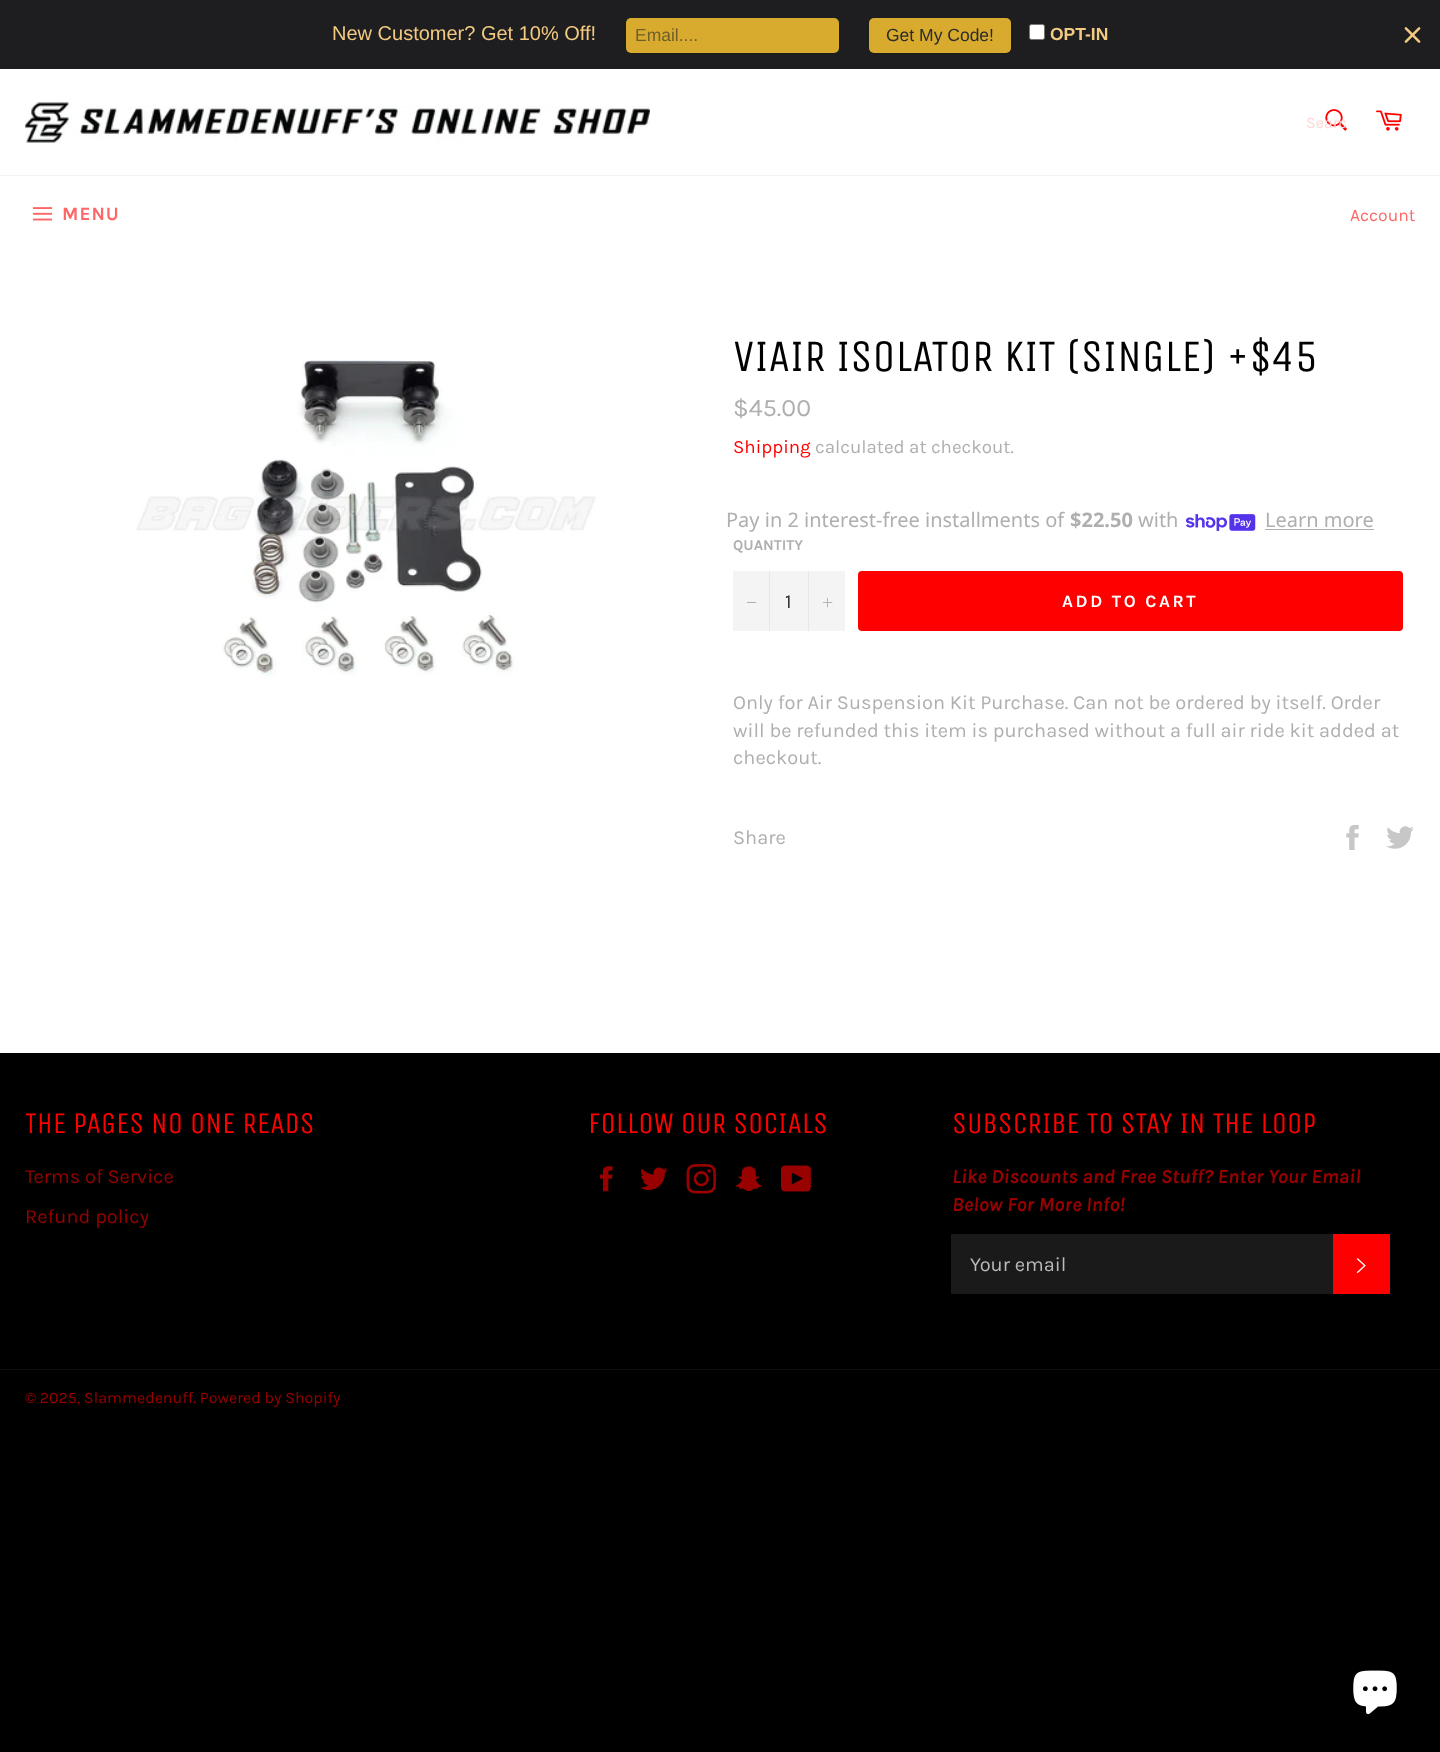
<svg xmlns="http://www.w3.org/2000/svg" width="1440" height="1752">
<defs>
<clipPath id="clip1"><rect x="1306" y="113" width="40" height="18"/></clipPath>
</defs>
<rect width="100%" height="100%" fill="#000"/>
<rect y="69" width="1440" height="984" fill="#fff"/>
<rect width="1440" height="69" fill="#1e1e20"/>
<text x="332" y="40" style="font-family:Liberation Sans;font-size:20px;fill:#f2ca80">New Customer? Get 10% Off!</text>
<rect x="626" y="18" width="213" height="35" rx="5" fill="#d8ab2e"/>
<text x="635" y="41" style="font-family:Liberation Sans;font-size:17.5px;fill:#705f2c">Email....</text>
<rect x="869" y="18" width="142" height="35" rx="5" fill="#d8ab2e"/>
<text x="886" y="41" style="font-family:Liberation Sans;font-size:17.5px;fill:#2a2c2b">Get My Code!</text>
<rect x="1029.5" y="24.5" width="15" height="15" rx="2" fill="#fff" stroke="#767676"/>
<text x="1050" y="40" style="font-family:Liberation Sans;font-size:17.5px;font-weight:bold;fill:#f2ca80">OPT-IN</text>
<image x="1404" y="27" width="17" height="16" href="media/1.png"/>
<image x="25" y="102" width="625" height="41" href="media/2.png"/>
<image x="1325" y="109" width="22" height="22" href="media/3.png"/>
<g clip-path="url(#clip1)">
<text x="1306" y="128" style="font-family:Karla;font-size:16px;fill:#ffd6d6">Searc</text>
</g>
<image x="1376" y="110" width="26" height="21" href="media/4.png"/>
<rect y="175" width="1440" height="1" fill="#f2f2f2"/>
<image x="32" y="207" width="21" height="14" href="media/5.png"/>
<text x="62" y="220" style="font-family:Karla;font-size:18.75px;font-weight:bold;letter-spacing:1px;fill:#f66">MENU</text>
<text x="1350" y="221" style="font-family:Karla;font-size:17.5px;fill:#f66">Account</text>
<image x="136" y="360" width="460" height="317" href="media/6.png"/>
<text x="733" y="371" style="font-family:Unica One;font-size:45px;fill:#000">VIAIR ISOLATOR KIT (SINGLE) +$45</text>
<text x="733" y="416" style="font-family:Karla;font-size:25px;fill:#afafaf">$45.00</text>
<text x="733" y="453" style="font-family:Karla;font-size:18.75px;fill:#f00">Shipping</text>
<text x="815" y="453" style="font-family:Karla;font-size:18.75px;fill:#afafaf">calculated at checkout.</text>
<text x="726" y="527" style="font-family:Noto Sans;font-size:20px;fill:#afafaf">Pay in 2 interest-free installments of</text>
<text x="1070" y="527" style="font-family:Noto Sans;font-size:20px;font-weight:bold;fill:#afafaf">$22.50</text>
<text x="1138" y="527" style="font-family:Noto Sans;font-size:20px;fill:#afafaf">with</text>
<image x="1186" y="514" width="70" height="17" href="media/7.png"/>
<text x="1265" y="527" style="font-family:Noto Sans;font-size:20px;fill:#afafaf">Learn more</text>
<rect x="1265" y="529" width="109" height="1" fill="#afafaf"/>
<text x="733" y="550" style="font-family:Karla;font-size:15px;font-weight:bold;fill:#afafaf">QUANTITY</text>
<rect x="733" y="571" width="112" height="60" fill="#f4f4f4"/>
<rect x="769" y="571" width="1" height="60" fill="#e7e7e7"/>
<rect x="747" y="602" width="9" height="1" fill="#afafaf"/>
<text x="785" y="608" style="font-family:Karla;font-size:20px;fill:#333">1</text>
<rect x="808" y="571" width="1" height="60" fill="#e7e7e7"/>
<image x="823" y="598" width="10" height="10" href="media/8.png"/>
<rect x="858" y="571" width="545" height="60" rx="4" fill="#f00"/>
<text x="1062" y="607" style="font-family:Karla;font-size:17.5px;font-weight:bold;letter-spacing:2.6px;fill:#fff">ADD TO CART</text>
<text x="733" y="709" style="font-family:Karla;font-size:20px;fill:#afafaf">Only for Air Suspension Kit Purchase. Can not be ordered by itself. Order</text>
<text x="733" y="737" style="font-family:Karla;font-size:20px;fill:#afafaf">will be refunded this item is purchased without a full air ride kit added at</text>
<text x="733" y="764" style="font-family:Karla;font-size:20px;fill:#afafaf">checkout.</text>
<text x="733" y="844" style="font-family:Karla;font-size:20px;fill:#afafaf">Share</text>
<image x="1346" y="825" width="13" height="25" href="media/9.png"/>
<image x="1386" y="826" width="28" height="23" href="media/10.png"/>
<text x="25" y="1133" style="font-family:Unica One;font-size:30px;fill:#f00">THE PAGES NO ONE READS</text>
<text x="25" y="1183" style="font-family:Karla;font-size:20px;fill:#900">Terms of Service</text>
<text x="25" y="1223" style="font-family:Karla;font-size:20px;fill:#900">Refund policy</text>
<text x="588" y="1133" style="font-family:Unica One;font-size:30px;fill:#f00">FOLLOW OUR SOCIALS</text>
<image x="600" y="1166" width="13" height="26" href="media/11.png"/>
<image x="640" y="1167" width="28" height="23" href="media/12.png"/>
<image x="686" y="1164" width="30" height="30" href="media/13.png"/>
<image x="735" y="1166" width="27" height="26" href="media/14.png"/>
<image x="781" y="1165" width="30" height="27" href="media/15.png"/>
<text x="952" y="1133" style="font-family:Unica One;font-size:30px;fill:#f00">SUBSCRIBE TO STAY IN THE LOOP</text>
<text x="952" y="1183" style="font-family:Karla;font-size:20px;font-weight:bold;font-style:italic;fill:#900">Like Discounts and Free Stuff? Enter Your Email</text>
<text x="952" y="1211" style="font-family:Karla;font-size:20px;font-weight:bold;font-style:italic;fill:#900">Below For More Info!</text>
<rect x="951" y="1234" width="382" height="60" fill="#1a1a1a"/>
<text x="970" y="1271" style="font-family:Karla;font-size:20px;fill:#bababa">Your email</text>
<rect x="1333" y="1234" width="57" height="60" fill="#f00"/>
<image x="1356" y="1258" width="10" height="16" href="media/16.png"/>
<rect y="1369" width="1440" height="1" fill="#0d0d0d"/>
<text x="25" y="1403" style="font-family:Karla;font-size:16px;fill:#900">© 2025, Slammedenuff. Powered by Shopify</text>
<image x="1353" y="1670" width="44" height="45" href="media/17.png"/>
</svg>
